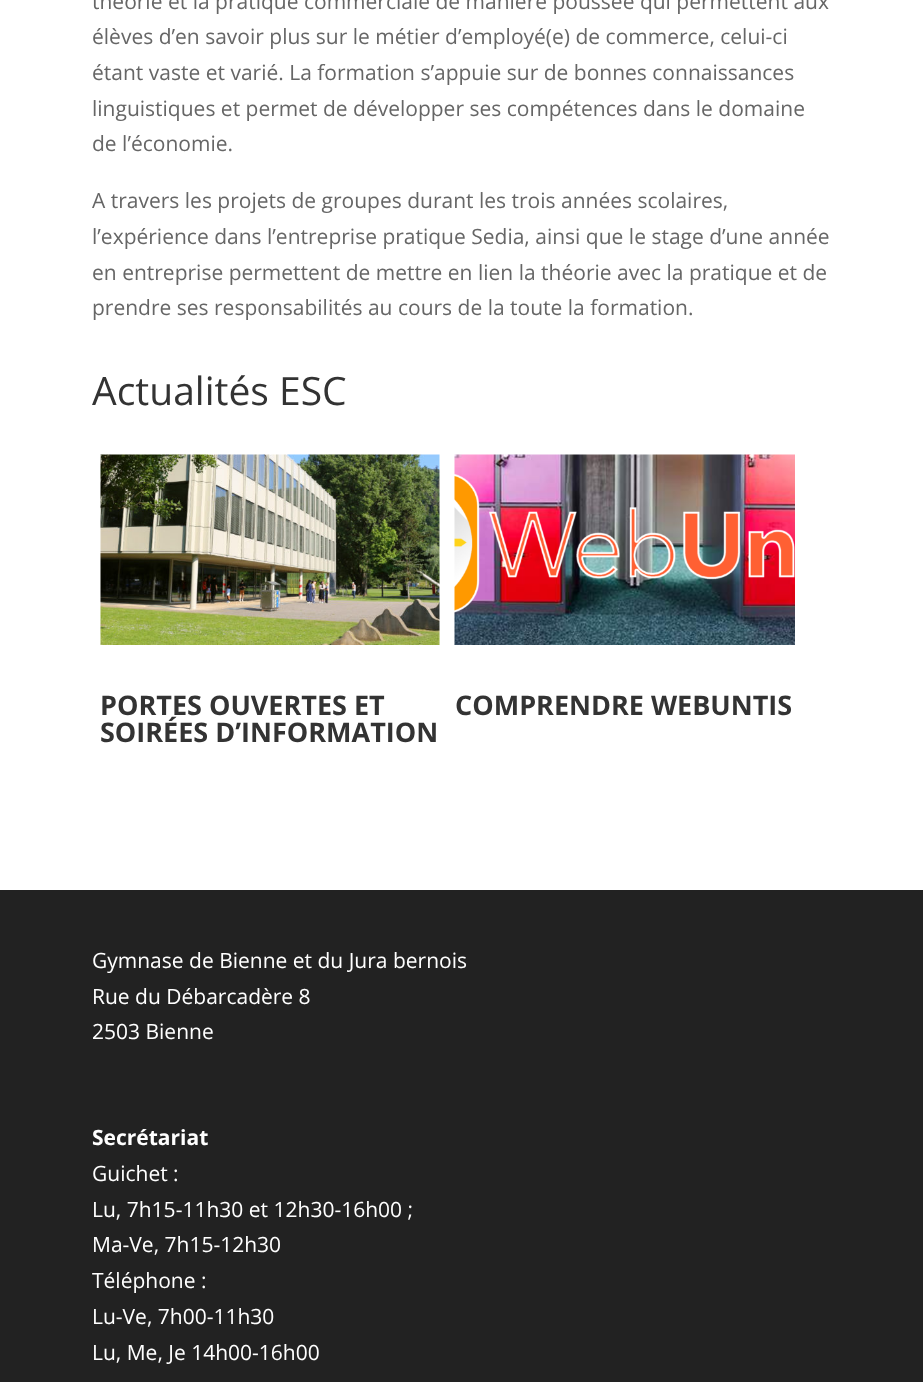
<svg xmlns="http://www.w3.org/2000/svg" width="923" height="1382">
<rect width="100%" height="100%" fill="#fff"/>
<text x="92" y="9" style="font-family:Open Sans;font-size:21px;fill:#666">théorie et la pratique commerciale de manière poussée qui permettent aux</text>
<text x="92" y="44" style="font-family:Open Sans;font-size:21px;fill:#666">élèves d’en savoir plus sur le métier d’employé(e) de commerce, celui-ci</text>
<text x="92" y="80" style="font-family:Open Sans;font-size:21px;fill:#666">étant vaste et varié. La formation s’appuie sur de bonnes connaissances</text>
<text x="92" y="116" style="font-family:Open Sans;font-size:21px;fill:#666">linguistiques et permet de développer ses compétences dans le domaine</text>
<text x="92" y="151" style="font-family:Open Sans;font-size:21px;fill:#666">de l’économie.</text>
<text x="92" y="208" style="font-family:Open Sans;font-size:21px;fill:#666">A travers les projets de groupes durant les trois années scolaires,</text>
<text x="92" y="244" style="font-family:Open Sans;font-size:21px;fill:#666">l’expérience dans l’entreprise pratique Sedia, ainsi que le stage d’une année</text>
<text x="92" y="280" style="font-family:Open Sans;font-size:21px;fill:#666">en entreprise permettent de mettre en lien la théorie avec la pratique et de</text>
<text x="92" y="315" style="font-family:Open Sans;font-size:21px;fill:#666">prendre ses responsabilités au cours de la toute la formation.</text>
<text x="92" y="405" style="font-family:Open Sans;font-size:39px;fill:#333">Actualités ESC</text>
<image x="100" y="454" width="340" height="191" href="media/1.png"/>
<text x="100" y="715" style="font-family:Open Sans;font-size:27px;font-weight:bold;fill:#333">PORTES OUVERTES ET</text>
<text x="100" y="742" style="font-family:Open Sans;font-size:27px;font-weight:bold;fill:#333">SOIRÉES D’INFORMATION</text>
<image x="454" y="454" width="341" height="191" href="media/2.png"/>
<text x="455" y="715" style="font-family:Open Sans;font-size:27px;font-weight:bold;fill:#333">COMPRENDRE WEBUNTIS</text>
<rect y="890" width="923" height="492" fill="#222"/>
<text x="92" y="968" style="font-family:Open Sans;font-size:21px;fill:#fff">Gymnase de Bienne et du Jura bernois</text>
<text x="92" y="1004" style="font-family:Open Sans;font-size:21px;fill:#fff">Rue du Débarcadère 8</text>
<text x="92" y="1039" style="font-family:Open Sans;font-size:21px;fill:#fff">2503 Bienne</text>
<text x="92" y="1145" style="font-family:Open Sans;font-size:21px;font-weight:bold;fill:#fff">Secrétariat</text>
<text x="92" y="1181" style="font-family:Open Sans;font-size:21px;fill:#fff">Guichet :</text>
<text x="92" y="1217" style="font-family:Open Sans;font-size:21px;fill:#fff">Lu, 7h15-11h30 et 12h30-16h00 ;</text>
<text x="92" y="1252" style="font-family:Open Sans;font-size:21px;fill:#fff">Ma-Ve, 7h15-12h30</text>
<text x="92" y="1288" style="font-family:Open Sans;font-size:21px;fill:#fff">Téléphone :</text>
<text x="92" y="1324" style="font-family:Open Sans;font-size:21px;fill:#fff">Lu-Ve, 7h00-11h30</text>
<text x="92" y="1360" style="font-family:Open Sans;font-size:21px;fill:#fff">Lu, Me, Je 14h00-16h00</text>
</svg>
